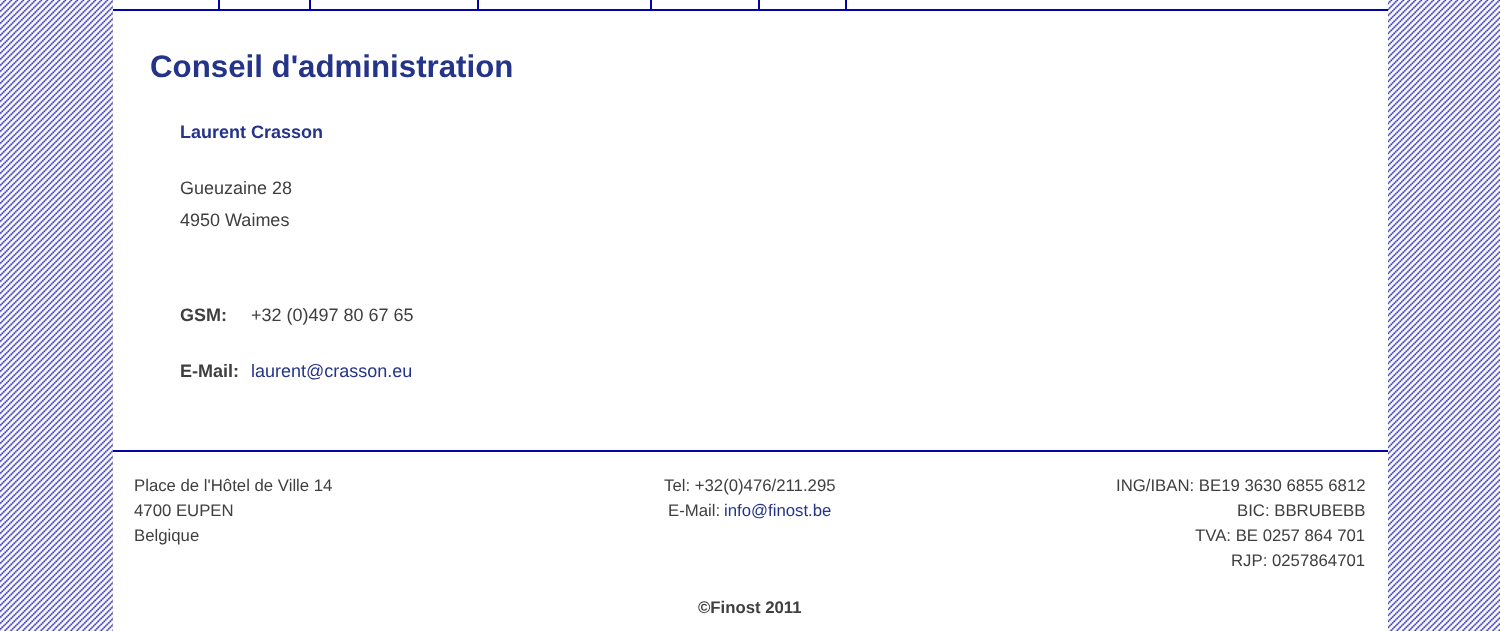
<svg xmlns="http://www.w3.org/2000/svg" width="1500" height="631">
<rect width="100%" height="100%" fill="#fff"/>
<image x="0" y="0" width="1500" height="631" href="media/1.png"/>
<rect x="113" width="1275" height="631" fill="#fff"/>
<rect x="113" y="9" width="1275" height="2" fill="#0303ae"/>
<rect x="218" width="2" height="9" fill="#0303ae"/>
<rect x="309" width="2" height="9" fill="#0303ae"/>
<rect x="477" width="2" height="9" fill="#0303ae"/>
<rect x="650" width="2" height="9" fill="#0303ae"/>
<rect x="758" width="2" height="9" fill="#0303ae"/>
<rect x="845" width="2" height="9" fill="#0303ae"/>
<text x="150" y="77" style="font-family:Liberation Sans;font-size:31.25px;font-weight:bold;fill:#243489">Conseil d'administration</text>
<text x="180" y="138" style="font-family:Liberation Sans;font-size:18px;font-weight:bold;fill:#243489">Laurent Crasson</text>
<text x="180" y="194" style="font-family:Liberation Sans;font-size:18px;fill:#3f3f3f">Gueuzaine 28</text>
<text x="180" y="226" style="font-family:Liberation Sans;font-size:18px;fill:#3f3f3f">4950 Waimes</text>
<text x="180" y="321" style="font-family:Liberation Sans;font-size:18px;font-weight:bold;fill:#3f3f3f">GSM:</text>
<text x="251" y="321" style="font-family:Liberation Sans;font-size:18px;fill:#3f3f3f">+32 (0)497 80 67 65</text>
<text x="180" y="377" style="font-family:Liberation Sans;font-size:18px;font-weight:bold;fill:#3f3f3f">E-Mail:</text>
<text x="251" y="377" style="font-family:Liberation Sans;font-size:18px;fill:#243489">laurent@crasson.eu</text>
<rect x="113" y="450" width="1275" height="2" fill="#0303ae"/>
<text x="134" y="491" style="font-family:Liberation Sans;font-size:16.75px;fill:#3f3f3f">Place de l'Hôtel de Ville 14</text>
<text x="134" y="516" style="font-family:Liberation Sans;font-size:16.75px;fill:#3f3f3f">4700 EUPEN</text>
<text x="134" y="541" style="font-family:Liberation Sans;font-size:16.75px;fill:#3f3f3f">Belgique</text>
<text x="664" y="491" style="font-family:Liberation Sans;font-size:16.75px;fill:#3f3f3f">Tel: +32(0)476/211.295</text>
<text x="668" y="516" style="font-family:Liberation Sans;font-size:16.75px;fill:#3f3f3f">E-Mail:</text>
<text x="724" y="516" style="font-family:Liberation Sans;font-size:16.75px;fill:#243489">info@finost.be</text>
<text x="1116" y="491" style="font-family:Liberation Sans;font-size:16.75px;fill:#3f3f3f">ING/IBAN: BE19 3630 6855 6812</text>
<text x="1237" y="516" style="font-family:Liberation Sans;font-size:16.75px;fill:#3f3f3f">BIC: BBRUBEBB</text>
<text x="1195" y="541" style="font-family:Liberation Sans;font-size:16.75px;fill:#3f3f3f">TVA: BE 0257 864 701</text>
<text x="1231" y="566" style="font-family:Liberation Sans;font-size:16.75px;fill:#3f3f3f">RJP: 0257864701</text>
<text x="698" y="613" style="font-family:Liberation Sans;font-size:16.75px;font-weight:bold;fill:#3f3f3f">©Finost 2011</text>
</svg>
